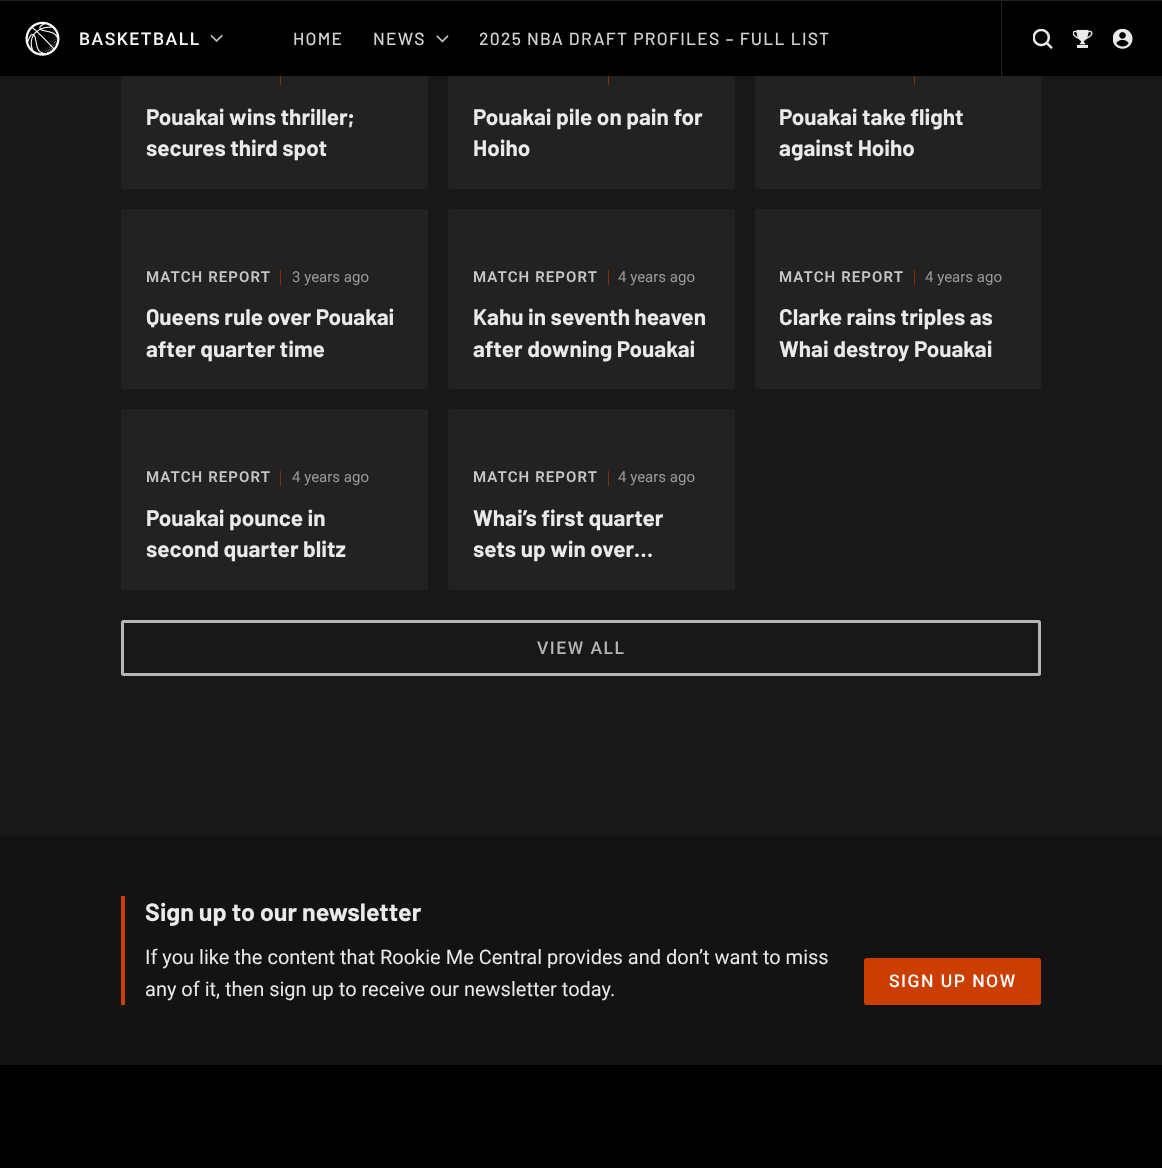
<svg xmlns="http://www.w3.org/2000/svg" width="1162" height="1168">
<rect width="100%" height="100%" fill="#181818"/>
<rect width="1162" height="1" fill="#222"/>
<rect x="121" y="9" width="307" height="180" rx="2.5" fill="#222"/>
<rect x="280" y="70" width="1" height="15" fill="#8f2b00"/>
<rect x="448" y="9" width="287" height="180" rx="2.5" fill="#222"/>
<rect x="608" y="70" width="1" height="15" fill="#8f2b00"/>
<rect x="755" y="9" width="286" height="180" rx="2.5" fill="#222"/>
<rect x="914" y="70" width="1" height="15" fill="#8f2b00"/>
<rect y="1" width="1162" height="75" fill="#000"/>
<image x="25" y="21" width="35" height="35" href="media/1.png"/>
<text x="79" y="45" style="font-family:Roboto;font-size:17.5px;font-weight:500;letter-spacing:1.5px;fill:#f7f7f7">BASKETBALL</text>
<image x="210" y="34" width="13" height="8" href="media/2.png"/>
<text x="293" y="45" style="font-family:Barlow;font-size:17.5px;font-weight:500;letter-spacing:1.3px;fill:#d2d2d2">HOME</text>
<text x="373" y="45" style="font-family:Barlow;font-size:17.5px;font-weight:500;letter-spacing:1.3px;fill:#d2d2d2">NEWS</text>
<image x="436" y="35" width="13" height="8" href="media/3.png"/>
<text x="479" y="45" style="font-family:Barlow;font-size:17.5px;font-weight:500;letter-spacing:1.3px;fill:#d2d2d2">2025 NBA DRAFT PROFILES – FULL LIST</text>
<rect x="1001" y="1" width="1" height="75" fill="#222"/>
<image x="1033" y="29" width="20" height="20" href="media/4.png"/>
<image x="1073" y="29" width="20" height="19" href="media/5.png"/>
<image x="1113" y="29" width="20" height="20" href="media/6.png"/>
<text x="146" y="125" style="font-family:Barlow;font-size:22.5px;font-weight:bold;fill:#ebeaea">Pouakai wins thriller;</text>
<text x="146" y="156" style="font-family:Barlow;font-size:22.5px;font-weight:bold;fill:#ebeaea">secures third spot</text>
<text x="473" y="125" style="font-family:Barlow;font-size:22.5px;font-weight:bold;fill:#ebeaea">Pouakai pile on pain for</text>
<text x="473" y="156" style="font-family:Barlow;font-size:22.5px;font-weight:bold;fill:#ebeaea">Hoiho</text>
<text x="779" y="125" style="font-family:Barlow;font-size:22.5px;font-weight:bold;fill:#ebeaea">Pouakai take flight</text>
<text x="779" y="156" style="font-family:Barlow;font-size:22.5px;font-weight:bold;fill:#ebeaea">against Hoiho</text>
<rect x="121" y="209" width="307" height="180" rx="2.5" fill="#222"/>
<text x="146" y="282" style="font-family:Roboto;font-size:15px;font-weight:600;letter-spacing:1.1px;fill:#c7c5c5">MATCH REPORT</text>
<rect x="280" y="270" width="1" height="15" fill="#8f2b00"/>
<text x="292" y="282" style="font-family:Roboto;font-size:15px;fill:#9a9a9a">3 years ago</text>
<text x="146" y="325" style="font-family:Barlow;font-size:22.5px;font-weight:bold;fill:#ebeaea">Queens rule over Pouakai</text>
<text x="146" y="357" style="font-family:Barlow;font-size:22.5px;font-weight:bold;fill:#ebeaea">after quarter time</text>
<rect x="448" y="209" width="287" height="180" rx="2.5" fill="#222"/>
<text x="473" y="282" style="font-family:Roboto;font-size:15px;font-weight:600;letter-spacing:1.1px;fill:#c7c5c5">MATCH REPORT</text>
<rect x="608" y="270" width="1" height="15" fill="#8f2b00"/>
<text x="618" y="282" style="font-family:Roboto;font-size:15px;fill:#9a9a9a">4 years ago</text>
<text x="473" y="325" style="font-family:Barlow;font-size:22.5px;font-weight:bold;fill:#ebeaea">Kahu in seventh heaven</text>
<text x="473" y="357" style="font-family:Barlow;font-size:22.5px;font-weight:bold;fill:#ebeaea">after downing Pouakai</text>
<rect x="755" y="209" width="286" height="180" rx="2.5" fill="#222"/>
<text x="779" y="282" style="font-family:Roboto;font-size:15px;font-weight:600;letter-spacing:1.1px;fill:#c7c5c5">MATCH REPORT</text>
<rect x="914" y="270" width="1" height="15" fill="#8f2b00"/>
<text x="925" y="282" style="font-family:Roboto;font-size:15px;fill:#9a9a9a">4 years ago</text>
<text x="779" y="325" style="font-family:Barlow;font-size:22.5px;font-weight:bold;fill:#ebeaea">Clarke rains triples as</text>
<text x="779" y="357" style="font-family:Barlow;font-size:22.5px;font-weight:bold;fill:#ebeaea">Whai destroy Pouakai</text>
<rect x="121" y="409" width="307" height="181" rx="2.5" fill="#222"/>
<text x="146" y="482" style="font-family:Roboto;font-size:15px;font-weight:600;letter-spacing:1.1px;fill:#c7c5c5">MATCH REPORT</text>
<rect x="280" y="471" width="1" height="15" fill="#8f2b00"/>
<text x="292" y="482" style="font-family:Roboto;font-size:15px;fill:#9a9a9a">4 years ago</text>
<text x="146" y="526" style="font-family:Barlow;font-size:22.5px;font-weight:bold;fill:#ebeaea">Pouakai pounce in</text>
<text x="146" y="557" style="font-family:Barlow;font-size:22.5px;font-weight:bold;fill:#ebeaea">second quarter blitz</text>
<rect x="448" y="409" width="287" height="181" rx="2.5" fill="#222"/>
<text x="473" y="482" style="font-family:Roboto;font-size:15px;font-weight:600;letter-spacing:1.1px;fill:#c7c5c5">MATCH REPORT</text>
<rect x="608" y="471" width="1" height="15" fill="#8f2b00"/>
<text x="618" y="482" style="font-family:Roboto;font-size:15px;fill:#9a9a9a">4 years ago</text>
<text x="473" y="526" style="font-family:Barlow;font-size:22.5px;font-weight:bold;fill:#ebeaea">Whai’s first quarter</text>
<text x="473" y="557" style="font-family:Barlow;font-size:22.5px;font-weight:bold;fill:#ebeaea">sets up win over…</text>
<rect x="122.5" y="621.5" width="917" height="53" rx="1" fill="none" stroke="#b6b5b5" stroke-width="3"/>
<text x="537" y="654" style="font-family:Roboto;font-size:17.5px;font-weight:500;letter-spacing:1.5px;fill:#b6b5b5">VIEW ALL</text>
<rect y="836" width="1162" height="229" fill="#131313"/>
<rect x="121" y="896" width="4" height="109" fill="#cc3d00"/>
<text x="145" y="921" style="font-family:Barlow;font-size:25px;font-weight:bold;fill:#ebeaea">Sign up to our newsletter</text>
<text x="145" y="964" style="font-family:Roboto;font-size:20px;fill:#ebeaea">If you like the content that Rookie Me Central provides and don’t want to miss</text>
<text x="145" y="996" style="font-family:Roboto;font-size:20px;fill:#ebeaea">any of it, then sign up to receive our newsletter today.</text>
<rect x="864" y="958" width="177" height="47" rx="2.5" fill="#cc3d00"/>
<text x="889" y="987" style="font-family:Roboto;font-size:17.5px;font-weight:500;letter-spacing:1.5px;fill:#fff">SIGN UP NOW</text>
<rect y="1065" width="1162" height="103" fill="#000"/>
</svg>
